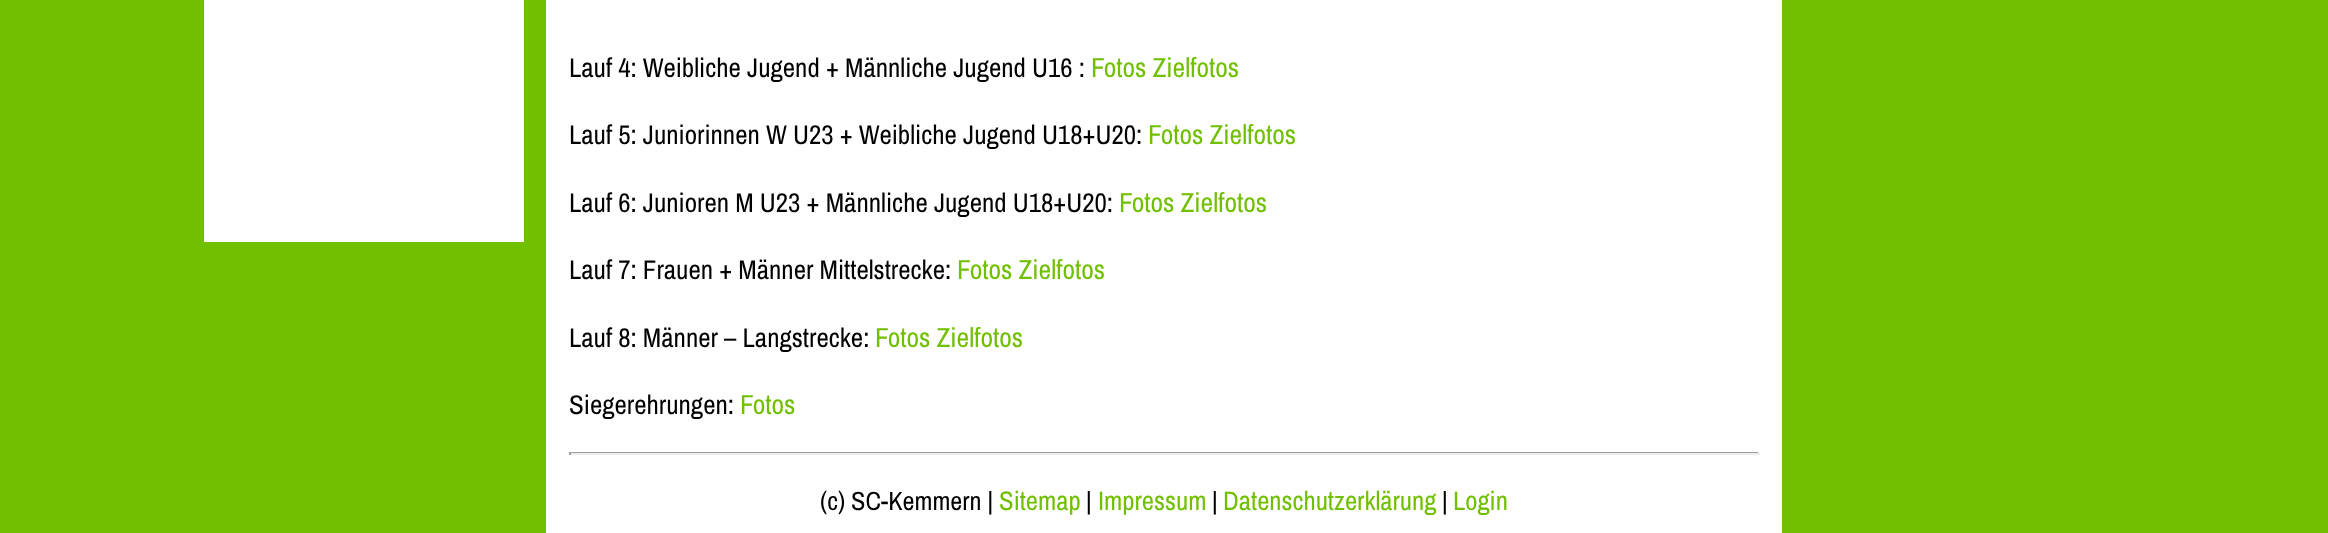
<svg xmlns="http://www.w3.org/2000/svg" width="2328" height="533">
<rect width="100%" height="100%" fill="#70c000"/>
<rect x="204" width="320" height="242" fill="#fff"/>
<rect x="546" width="1236" height="533" fill="#fff"/>
<text x="569" y="77" style="font-family:Archivo Narrow;font-size:27px;fill:#000">Lauf 4: Weibliche Jugend + Männliche Jugend U16 :</text>
<text x="1091" y="77" style="font-family:Archivo Narrow;font-size:27.5px;fill:#70c000">Fotos Zielfotos</text>
<text x="569" y="144" style="font-family:Archivo Narrow;font-size:27px;fill:#000">Lauf 5: Juniorinnen W U23 + Weibliche Jugend U18+U20:</text>
<text x="1148" y="144" style="font-family:Archivo Narrow;font-size:27.5px;fill:#70c000">Fotos Zielfotos</text>
<text x="569" y="212" style="font-family:Archivo Narrow;font-size:27px;fill:#000">Lauf 6: Junioren M U23 + Männliche Jugend U18+U20:</text>
<text x="1119" y="212" style="font-family:Archivo Narrow;font-size:27.5px;fill:#70c000">Fotos Zielfotos</text>
<text x="569" y="279" style="font-family:Archivo Narrow;font-size:27px;fill:#000">Lauf 7: Frauen + Männer Mittelstrecke:</text>
<text x="957" y="279" style="font-family:Archivo Narrow;font-size:27.5px;fill:#70c000">Fotos Zielfotos</text>
<text x="569" y="347" style="font-family:Archivo Narrow;font-size:27px;fill:#000">Lauf 8: Männer – Langstrecke:</text>
<text x="875" y="347" style="font-family:Archivo Narrow;font-size:27.5px;fill:#70c000">Fotos Zielfotos</text>
<text x="569" y="414" style="font-family:Archivo Narrow;font-size:27px;fill:#000">Siegerehrungen:</text>
<text x="740" y="414" style="font-family:Archivo Narrow;font-size:27.5px;fill:#70c000">Fotos</text>
<rect x="569" y="452" width="1191" height="1" fill="#9f9f9f"/>
<rect x="1758" y="452" width="2" height="3" fill="#eee"/>
<rect x="569" y="453" width="1191" height="2" fill="#eee"/>
<rect x="569" y="452" width="2" height="3" fill="#9f9f9f"/>
<text x="820" y="510" style="font-family:Archivo Narrow;font-size:26.25px;fill:#000">(c) SC-Kemmern |</text>
<text x="999" y="510" style="font-family:Archivo Narrow;font-size:26.75px;fill:#70c000">Sitemap</text>
<text x="1086" y="510" style="font-family:Archivo Narrow;font-size:26.25px;fill:#000">|</text>
<text x="1098" y="510" style="font-family:Archivo Narrow;font-size:26.75px;fill:#70c000">Impressum</text>
<text x="1212" y="510" style="font-family:Archivo Narrow;font-size:26.25px;fill:#000">|</text>
<text x="1223" y="510" style="font-family:Archivo Narrow;font-size:26.75px;fill:#70c000">Datenschutzerklärung</text>
<text x="1442" y="510" style="font-family:Archivo Narrow;font-size:26.25px;fill:#000">|</text>
<text x="1453" y="510" style="font-family:Archivo Narrow;font-size:26.75px;fill:#70c000">Login</text>
</svg>
